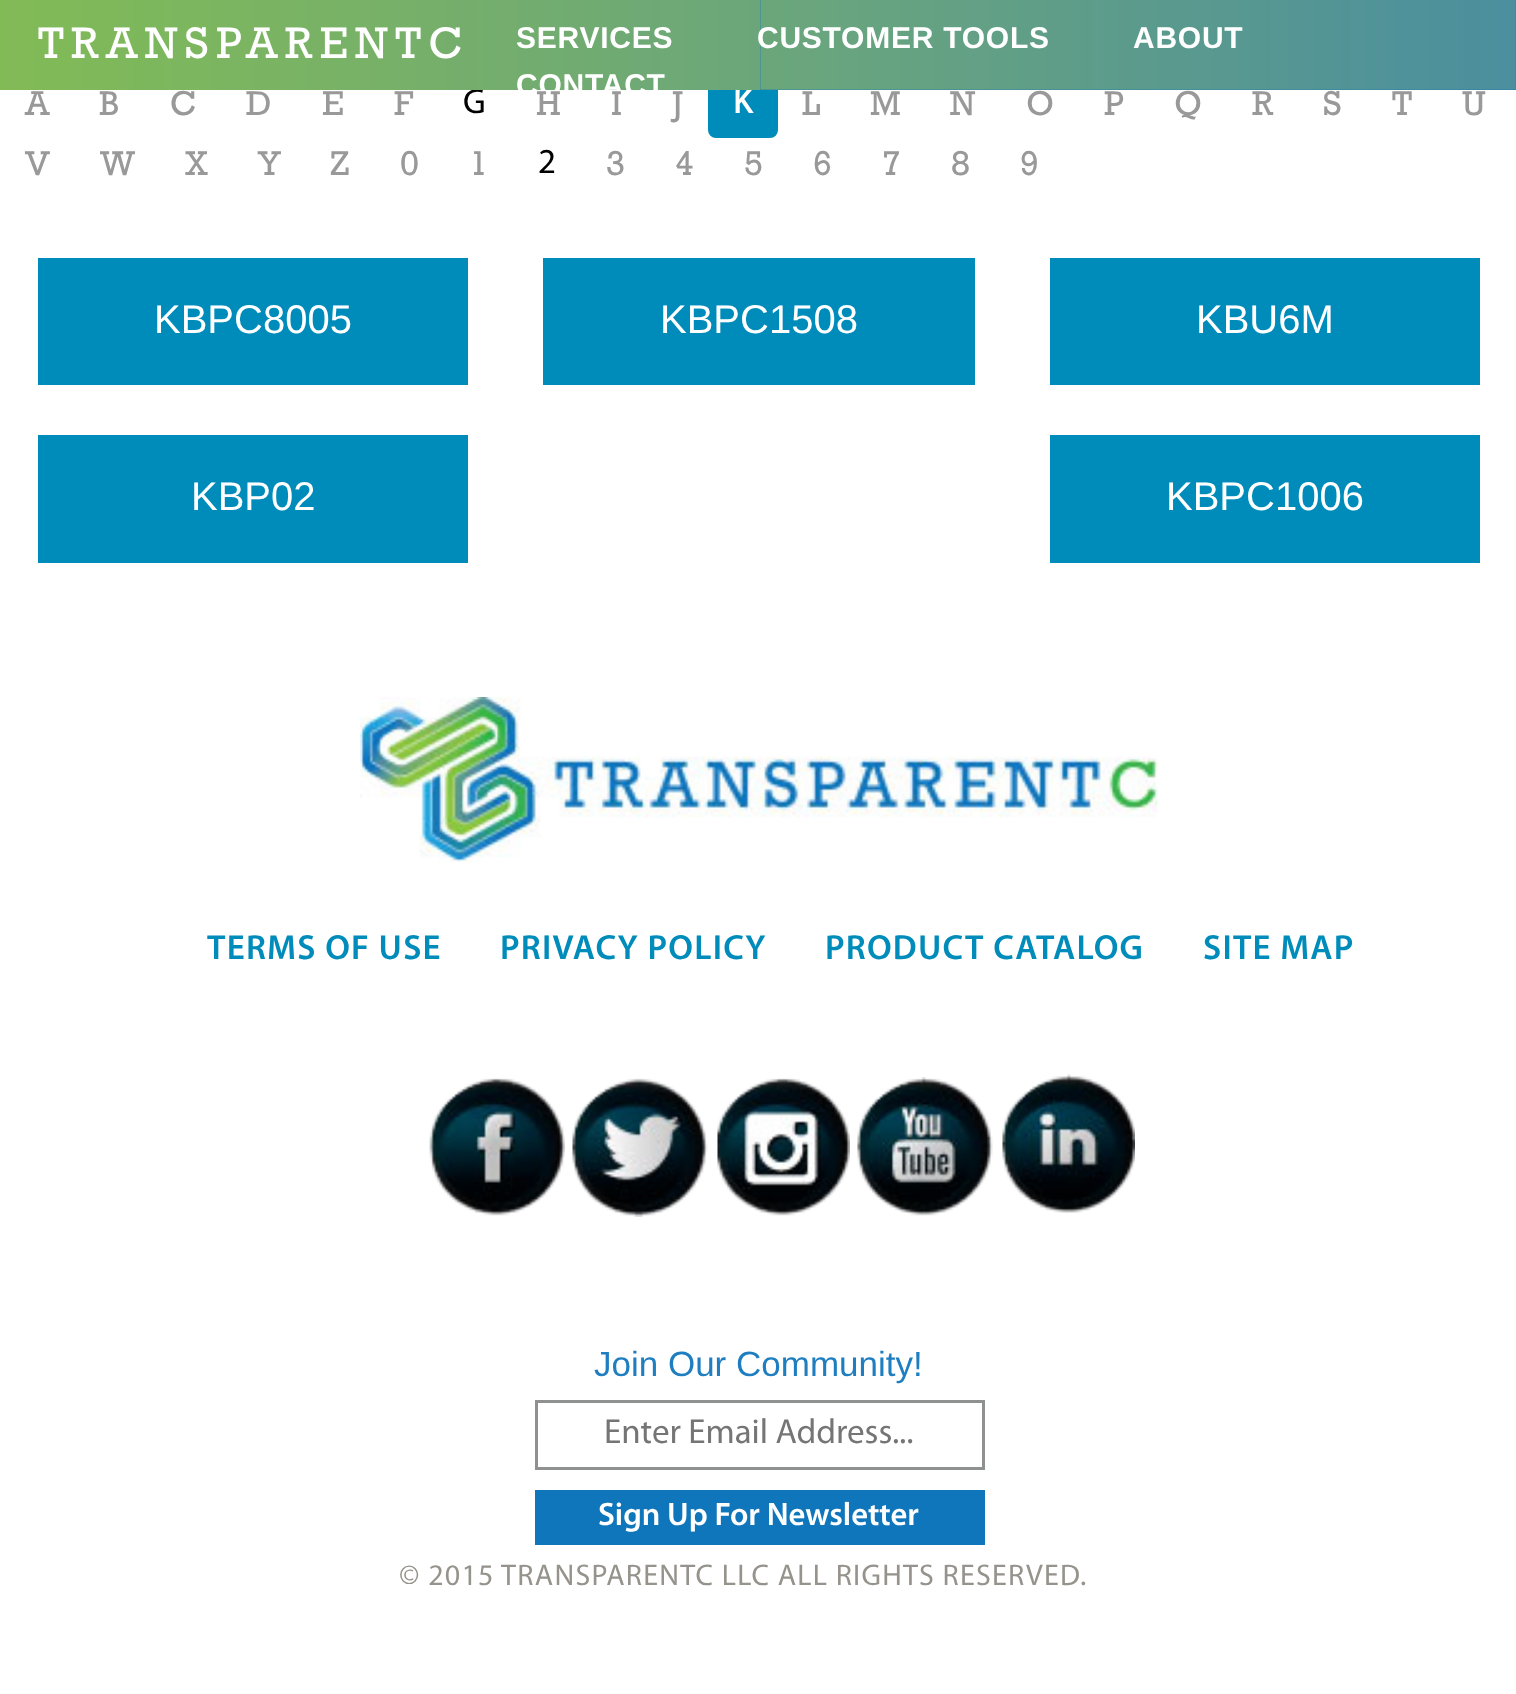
<svg xmlns="http://www.w3.org/2000/svg" width="1516" height="1694">
<rect width="100%" height="100%" fill="#fff"/>
<text x="463" y="113" style="font-family:Myriad;font-size:35px;fill:#000">G</text>
<rect x="708" y="73" width="70" height="65" rx="8" fill="#008cba"/>
<text x="733" y="113" style="font-family:Myriad;font-size:35px;font-weight:bold;fill:#fff">K</text>
<image x="0" y="0" width="760" height="90" href="media/1.png"/>
<rect x="760" width="756" height="90" fill="#0f75bc"/>
<image x="760" y="0" width="756" height="90" href="media/2.png"/>
<text x="38" y="58" style="font-family:Rockwell;font-size:45px;letter-spacing:7.5px;fill:#fff">TRANSPARENTC</text>
<text x="516" y="48" style="font-family:Liberation Sans;font-size:30px;font-weight:bold;letter-spacing:0.75px;fill:#fff">SERVICES</text>
<text x="757" y="48" style="font-family:Liberation Sans;font-size:30px;font-weight:bold;letter-spacing:0.75px;fill:#fff">CUSTOMER TOOLS</text>
<text x="1133" y="48" style="font-family:Liberation Sans;font-size:30px;font-weight:bold;letter-spacing:0.75px;fill:#fff">ABOUT</text>
<text x="516" y="95" style="font-family:Liberation Sans;font-size:30px;font-weight:bold;letter-spacing:0.75px;fill:#fff">CONTACT</text>
<text x="25" y="115" style="font-family:Rockwell;font-size:35px;fill:#999">A</text>
<text x="99" y="115" style="font-family:Rockwell;font-size:35px;fill:#999">B</text>
<text x="170" y="115" style="font-family:Rockwell;font-size:35px;fill:#999">C</text>
<text x="246" y="115" style="font-family:Rockwell;font-size:35px;fill:#999">D</text>
<text x="322" y="115" style="font-family:Rockwell;font-size:35px;fill:#999">E</text>
<text x="394" y="115" style="font-family:Rockwell;font-size:35px;fill:#999">F</text>
<text x="536" y="115" style="font-family:Rockwell;font-size:35px;fill:#999">H</text>
<text x="611" y="115" style="font-family:Rockwell;font-size:35px;fill:#999">I</text>
<text x="672" y="115" style="font-family:Rockwell;font-size:35px;fill:#999">J</text>
<text x="802" y="115" style="font-family:Rockwell;font-size:35px;fill:#999">L</text>
<text x="870" y="115" style="font-family:Rockwell;font-size:35px;fill:#999">M</text>
<text x="950" y="115" style="font-family:Rockwell;font-size:35px;fill:#999">N</text>
<text x="1026" y="115" style="font-family:Rockwell;font-size:35px;fill:#999">O</text>
<text x="1104" y="115" style="font-family:Rockwell;font-size:35px;fill:#999">P</text>
<text x="1174" y="115" style="font-family:Rockwell;font-size:35px;fill:#999">Q</text>
<text x="1252" y="115" style="font-family:Rockwell;font-size:35px;fill:#999">R</text>
<text x="1323" y="115" style="font-family:Rockwell;font-size:35px;fill:#999">S</text>
<text x="1392" y="115" style="font-family:Rockwell;font-size:35px;fill:#999">T</text>
<text x="1462" y="115" style="font-family:Rockwell;font-size:35px;fill:#999">U</text>
<text x="25" y="175" style="font-family:Rockwell;font-size:35px;fill:#999">V</text>
<text x="100" y="175" style="font-family:Rockwell;font-size:35px;fill:#999">W</text>
<text x="185" y="175" style="font-family:Rockwell;font-size:35px;fill:#999">X</text>
<text x="258" y="175" style="font-family:Rockwell;font-size:35px;fill:#999">Y</text>
<text x="330" y="175" style="font-family:Rockwell;font-size:35px;fill:#999">Z</text>
<text x="400" y="175" style="font-family:Rockwell;font-size:35px;fill:#999">0</text>
<text x="469" y="175" style="font-family:Rockwell;font-size:35px;fill:#999">1</text>
<text x="538" y="173" style="font-family:Myriad;font-size:35px;fill:#000">2</text>
<text x="606" y="175" style="font-family:Rockwell;font-size:35px;fill:#999">3</text>
<text x="675" y="175" style="font-family:Rockwell;font-size:35px;fill:#999">4</text>
<text x="744" y="175" style="font-family:Rockwell;font-size:35px;fill:#999">5</text>
<text x="813" y="175" style="font-family:Rockwell;font-size:35px;fill:#999">6</text>
<text x="882" y="175" style="font-family:Rockwell;font-size:35px;fill:#999">7</text>
<text x="951" y="175" style="font-family:Rockwell;font-size:35px;fill:#999">8</text>
<text x="1020" y="175" style="font-family:Rockwell;font-size:35px;fill:#999">9</text>
<rect x="38" y="258" width="430" height="127" fill="#008cba"/>
<text x="154" y="333" style="font-family:Liberation Sans;font-size:40px;fill:#fff">KBPC8005</text>
<rect x="543" y="258" width="432" height="127" fill="#008cba"/>
<text x="660" y="333" style="font-family:Liberation Sans;font-size:40px;fill:#fff">KBPC1508</text>
<rect x="1050" y="258" width="430" height="127" fill="#008cba"/>
<text x="1196" y="333" style="font-family:Liberation Sans;font-size:40px;fill:#fff">KBU6M</text>
<rect x="38" y="435" width="430" height="128" fill="#008cba"/>
<text x="191" y="510" style="font-family:Liberation Sans;font-size:40px;fill:#fff">KBP02</text>
<rect x="1050" y="435" width="430" height="128" fill="#008cba"/>
<text x="1166" y="510" style="font-family:Liberation Sans;font-size:40px;fill:#fff">KBPC1006</text>
<image x="360" y="697" width="798" height="165" href="media/3.png"/>
<text x="207" y="959" style="font-family:Myriad;font-size:35px;font-weight:600;letter-spacing:1.25px;fill:#008cba">TERMS OF USE</text>
<text x="500" y="959" style="font-family:Myriad;font-size:35px;font-weight:600;letter-spacing:1.25px;fill:#008cba">PRIVACY POLICY</text>
<text x="825" y="959" style="font-family:Myriad;font-size:35px;font-weight:600;letter-spacing:1.25px;fill:#008cba">PRODUCT CATALOG</text>
<text x="1203" y="959" style="font-family:Myriad;font-size:35px;font-weight:600;letter-spacing:1.25px;fill:#008cba">SITE MAP</text>
<image x="429" y="1078" width="136" height="138" href="media/4.png"/>
<image x="572" y="1078" width="136" height="139" href="media/5.png"/>
<image x="717" y="1078" width="133" height="138" href="media/6.png"/>
<image x="857" y="1077" width="136" height="139" href="media/7.png"/>
<image x="1002" y="1074" width="133" height="139" href="media/8.png"/>
<text x="594" y="1376" style="font-family:Liberation Sans;font-size:35px;fill:#1e7ec0">Join Our Community!</text>
<rect x="536.5" y="1401.5" width="447" height="67" fill="none" stroke="#8f9090" stroke-width="3"/>
<text x="604" y="1443" style="font-family:Myriad;font-size:35px;fill:#757575">Enter Email Address...</text>
<rect x="535" y="1490" width="450" height="55" fill="#1076bc"/>
<text x="598" y="1525" style="font-family:Myriad;font-size:32.5px;font-weight:600;fill:#fff">Sign Up For Newsletter</text>
<text x="399" y="1585" style="font-family:Myriad;font-size:30px;letter-spacing:1.25px;fill:#95938c">© 2015 TRANSPARENTC LLC ALL RIGHTS RESERVED.</text>
</svg>
